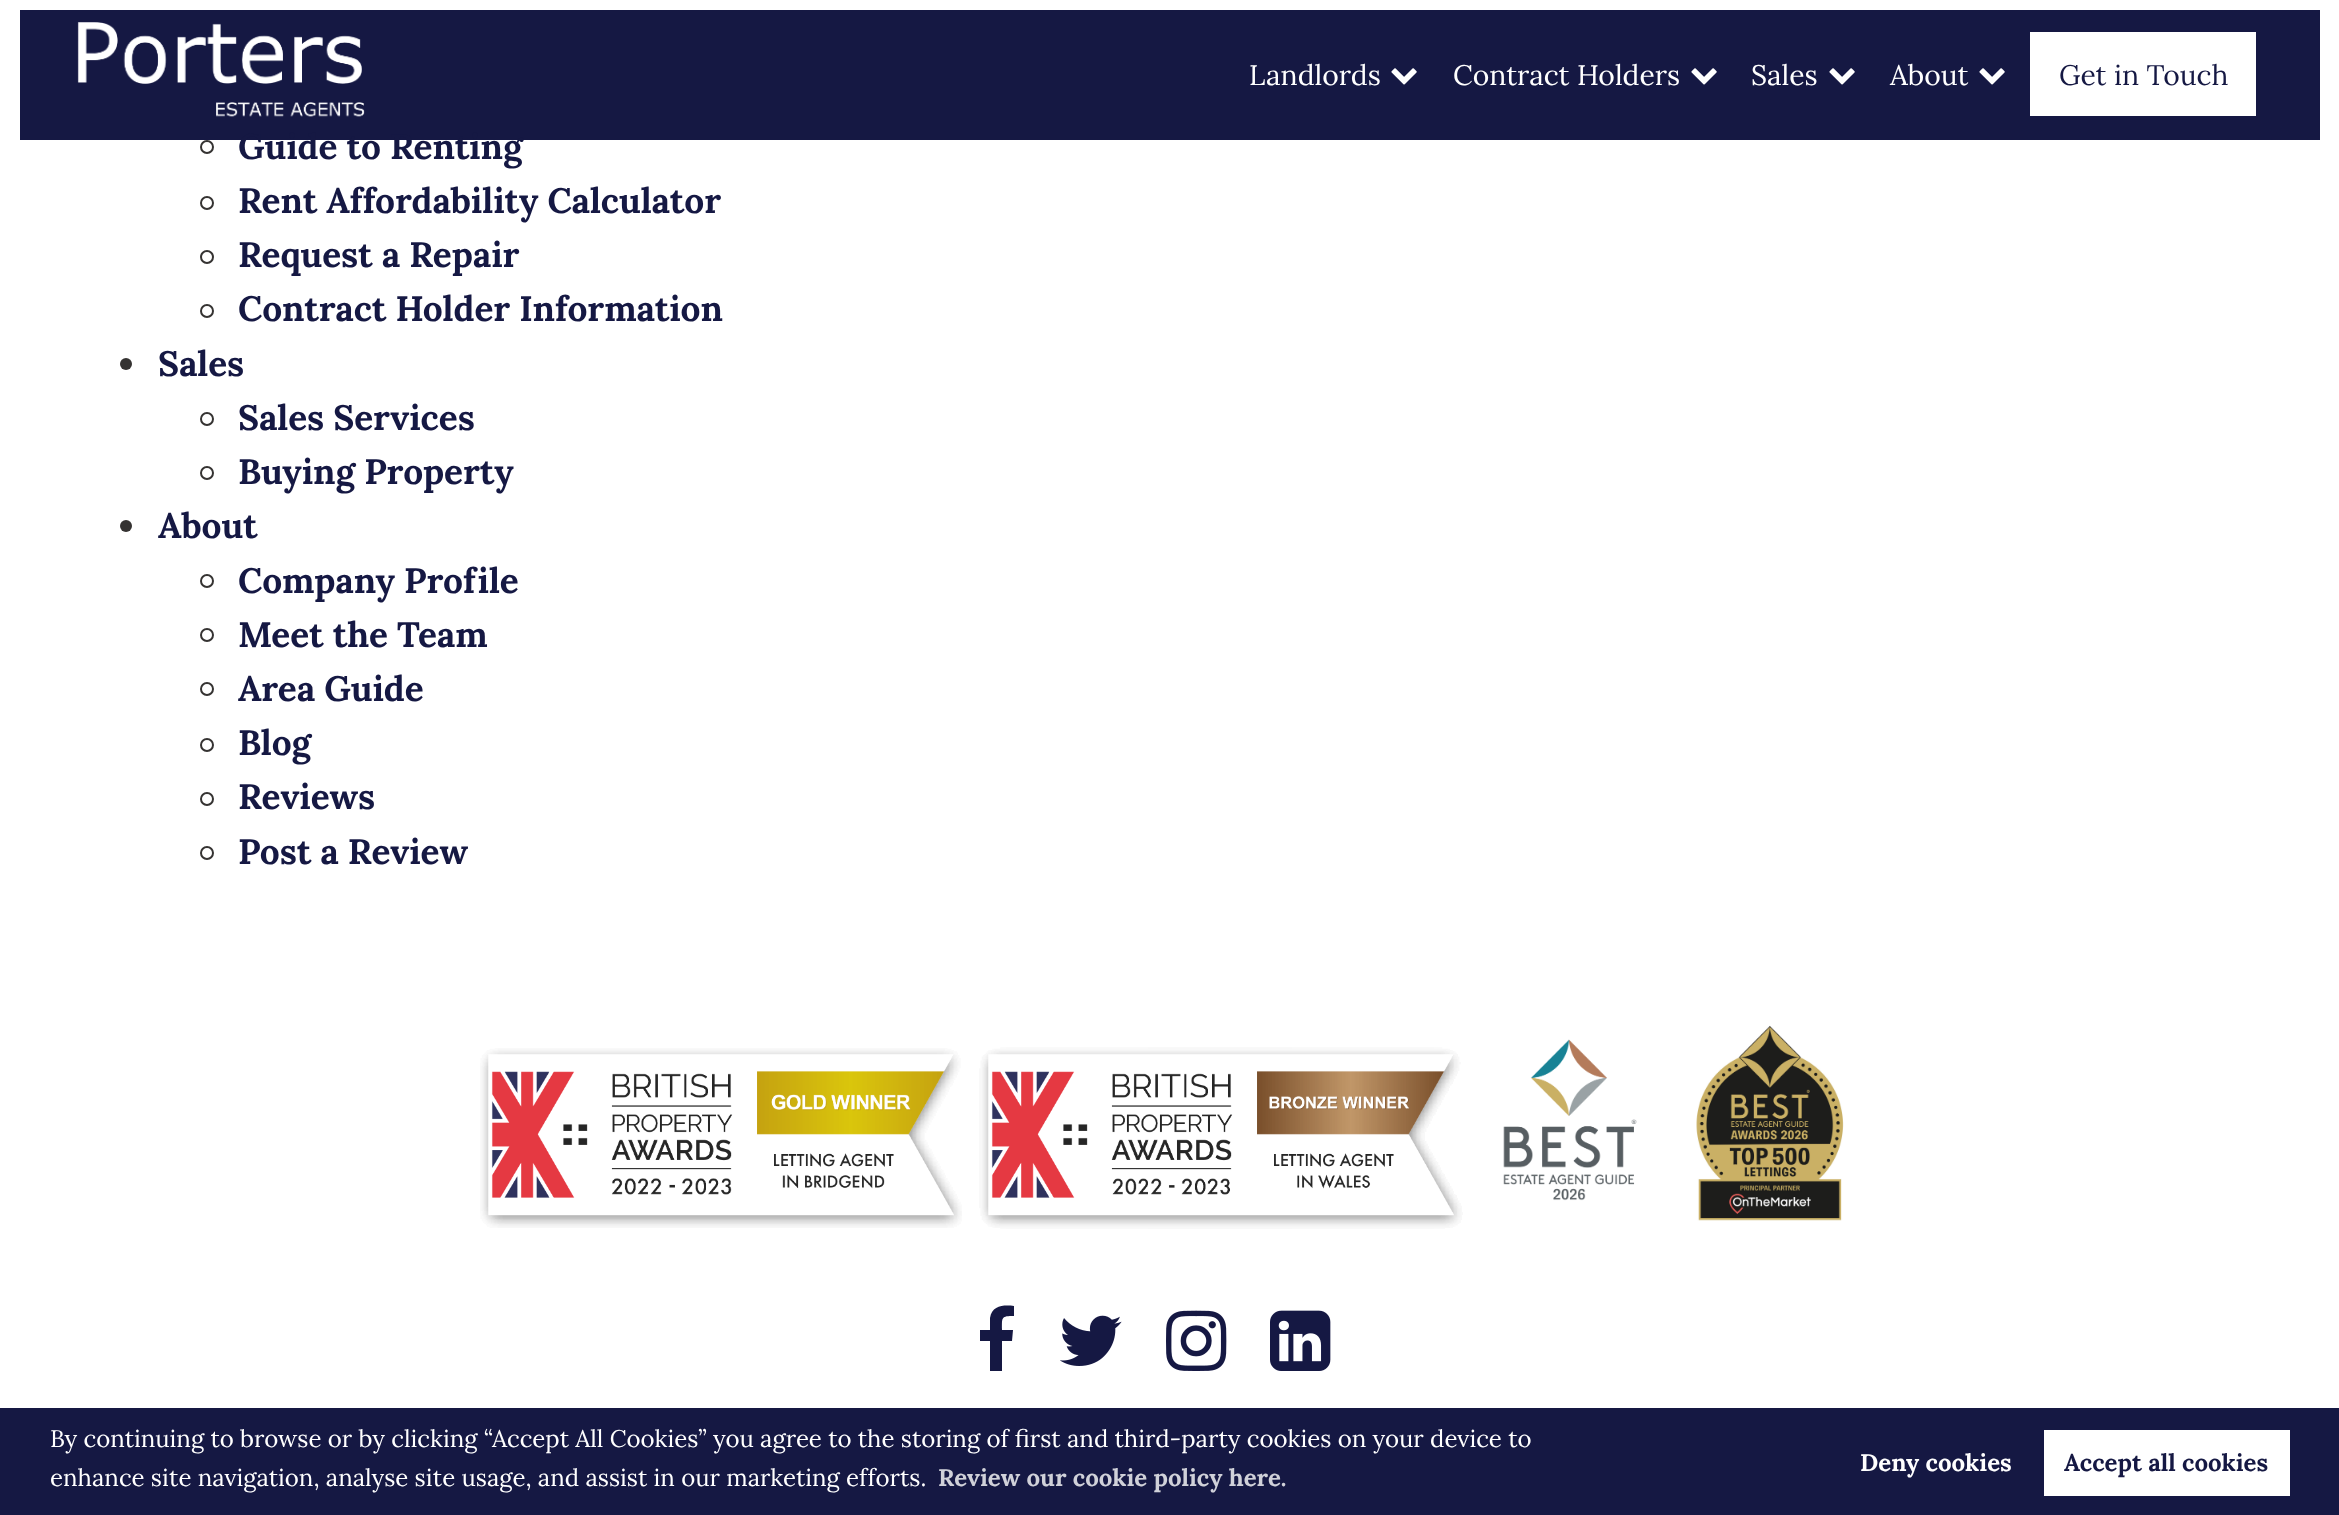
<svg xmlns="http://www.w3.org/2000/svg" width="2339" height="1515">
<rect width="100%" height="100%" fill="#fff"/>
<rect x="20" y="10" width="2300" height="130" fill="#151843"/>
<image x="77" y="22" width="288" height="95" href="media/1.png"/>
<text x="1249" y="85" style="font-family:Lora;font-size:28.25px;fill:#fff">Landlords</text>
<image x="1391" y="68" width="26" height="17" href="media/2.png"/>
<text x="1453" y="85" style="font-family:Lora;font-size:28.25px;fill:#fff">Contract Holders</text>
<image x="1691" y="68" width="26" height="17" href="media/2.png"/>
<text x="1751" y="85" style="font-family:Lora;font-size:28.25px;fill:#fff">Sales</text>
<image x="1829" y="68" width="26" height="17" href="media/2.png"/>
<text x="1890" y="85" style="font-family:Lora;font-size:28.25px;fill:#fff">About</text>
<image x="1979" y="68" width="26" height="17" href="media/2.png"/>
<rect x="2030" y="32" width="226" height="84" fill="#fff"/>
<text x="2059" y="85" style="font-family:Lora;font-size:28.25px;fill:#151843">Get in Touch</text>
<circle cx="207" cy="147" r="6" fill="none" stroke="#353332" stroke-width="2"/>
<text x="238" y="159" style="font-family:Lora;font-size:35.25px;font-weight:bold;letter-spacing:-0.1px;fill:#151843">Guide to Renting</text>
<circle cx="207" cy="203" r="6" fill="none" stroke="#353332" stroke-width="2"/>
<text x="238" y="213" style="font-family:Lora;font-size:35.25px;font-weight:bold;letter-spacing:-0.1px;fill:#151843">Rent Affordability Calculator</text>
<circle cx="207" cy="257" r="6" fill="none" stroke="#353332" stroke-width="2"/>
<text x="238" y="267" style="font-family:Lora;font-size:35.25px;font-weight:bold;letter-spacing:-0.1px;fill:#151843">Request a Repair</text>
<circle cx="207" cy="311" r="6" fill="none" stroke="#353332" stroke-width="2"/>
<text x="238" y="321" style="font-family:Lora;font-size:35.25px;font-weight:bold;letter-spacing:-0.1px;fill:#151843">Contract Holder Information</text>
<circle cx="126" cy="364" r="6" fill="#353332"/>
<text x="158" y="376" style="font-family:Lora;font-size:35.25px;font-weight:bold;letter-spacing:-0.1px;fill:#151843">Sales</text>
<circle cx="207" cy="419" r="6" fill="none" stroke="#353332" stroke-width="2"/>
<text x="238" y="430" style="font-family:Lora;font-size:35.25px;font-weight:bold;letter-spacing:-0.1px;fill:#151843">Sales Services</text>
<circle cx="207" cy="473" r="6" fill="none" stroke="#353332" stroke-width="2"/>
<text x="238" y="484" style="font-family:Lora;font-size:35.25px;font-weight:bold;letter-spacing:-0.1px;fill:#151843">Buying Property</text>
<circle cx="126" cy="526" r="6" fill="#353332"/>
<text x="158" y="538" style="font-family:Lora;font-size:35.25px;font-weight:bold;letter-spacing:-0.1px;fill:#151843">About</text>
<circle cx="207" cy="581" r="6" fill="none" stroke="#353332" stroke-width="2"/>
<text x="238" y="593" style="font-family:Lora;font-size:35.25px;font-weight:bold;letter-spacing:-0.1px;fill:#151843">Company Profile</text>
<circle cx="207" cy="635" r="6" fill="none" stroke="#353332" stroke-width="2"/>
<text x="238" y="647" style="font-family:Lora;font-size:35.25px;font-weight:bold;letter-spacing:-0.1px;fill:#151843">Meet the Team</text>
<circle cx="207" cy="689" r="6" fill="none" stroke="#353332" stroke-width="2"/>
<text x="238" y="701" style="font-family:Lora;font-size:35.25px;font-weight:bold;letter-spacing:-0.1px;fill:#151843">Area Guide</text>
<circle cx="207" cy="745" r="6" fill="none" stroke="#353332" stroke-width="2"/>
<text x="238" y="755" style="font-family:Lora;font-size:35.25px;font-weight:bold;letter-spacing:-0.1px;fill:#151843">Blog</text>
<circle cx="207" cy="799" r="6" fill="none" stroke="#353332" stroke-width="2"/>
<text x="238" y="809" style="font-family:Lora;font-size:35.25px;font-weight:bold;letter-spacing:-0.1px;fill:#151843">Reviews</text>
<circle cx="207" cy="853" r="6" fill="none" stroke="#353332" stroke-width="2"/>
<text x="238" y="864" style="font-family:Lora;font-size:35.25px;font-weight:bold;letter-spacing:-0.1px;fill:#151843">Post a Review</text>
<image x="480" y="1048" width="482" height="180" href="media/3.png"/>
<image x="979" y="1047" width="484" height="182" href="media/4.png"/>
<image x="1503" y="1039" width="134" height="162" href="media/5.png"/>
<image x="1696" y="1025" width="148" height="196" href="media/6.png"/>
<path d="M1014 1306v10c-13 0-12 1-12 14h11l-1 11h-10v30h-12v-30h-10v-11h10v-12c2-13 14-13 24-12z" fill="#151843"/>
<image x="1060" y="1315" width="62" height="51" href="media/7.png"/>
<image x="1166" y="1310" width="61" height="61" href="media/8.png"/>
<image x="1270" y="1310" width="61" height="61" href="media/9.png"/>
<rect y="1408" width="2339" height="107" fill="#151843"/>
<text x="50" y="1447" style="font-family:Lora;font-size:24px;fill:#fff">By continuing to browse or by clicking “Accept All Cookies” you agree to the storing of first and third-party cookies on your device to</text>
<text x="50" y="1486" style="font-family:Lora;font-size:24px;fill:#fff">enhance site navigation, analyse site usage, and assist in our marketing efforts.</text>
<text x="938" y="1486" style="font-family:Lora;font-size:24px;font-weight:bold;fill:#d0d1d9">Review our cookie policy here.</text>
<text x="1860" y="1471" style="font-family:Lora;font-size:24px;font-weight:bold;fill:#fff">Deny cookies</text>
<rect x="2044" y="1430" width="246" height="66" fill="#fff"/>
<text x="2064" y="1471" style="font-family:Lora;font-size:24px;font-weight:bold;fill:#151843">Accept all cookies</text>
</svg>
